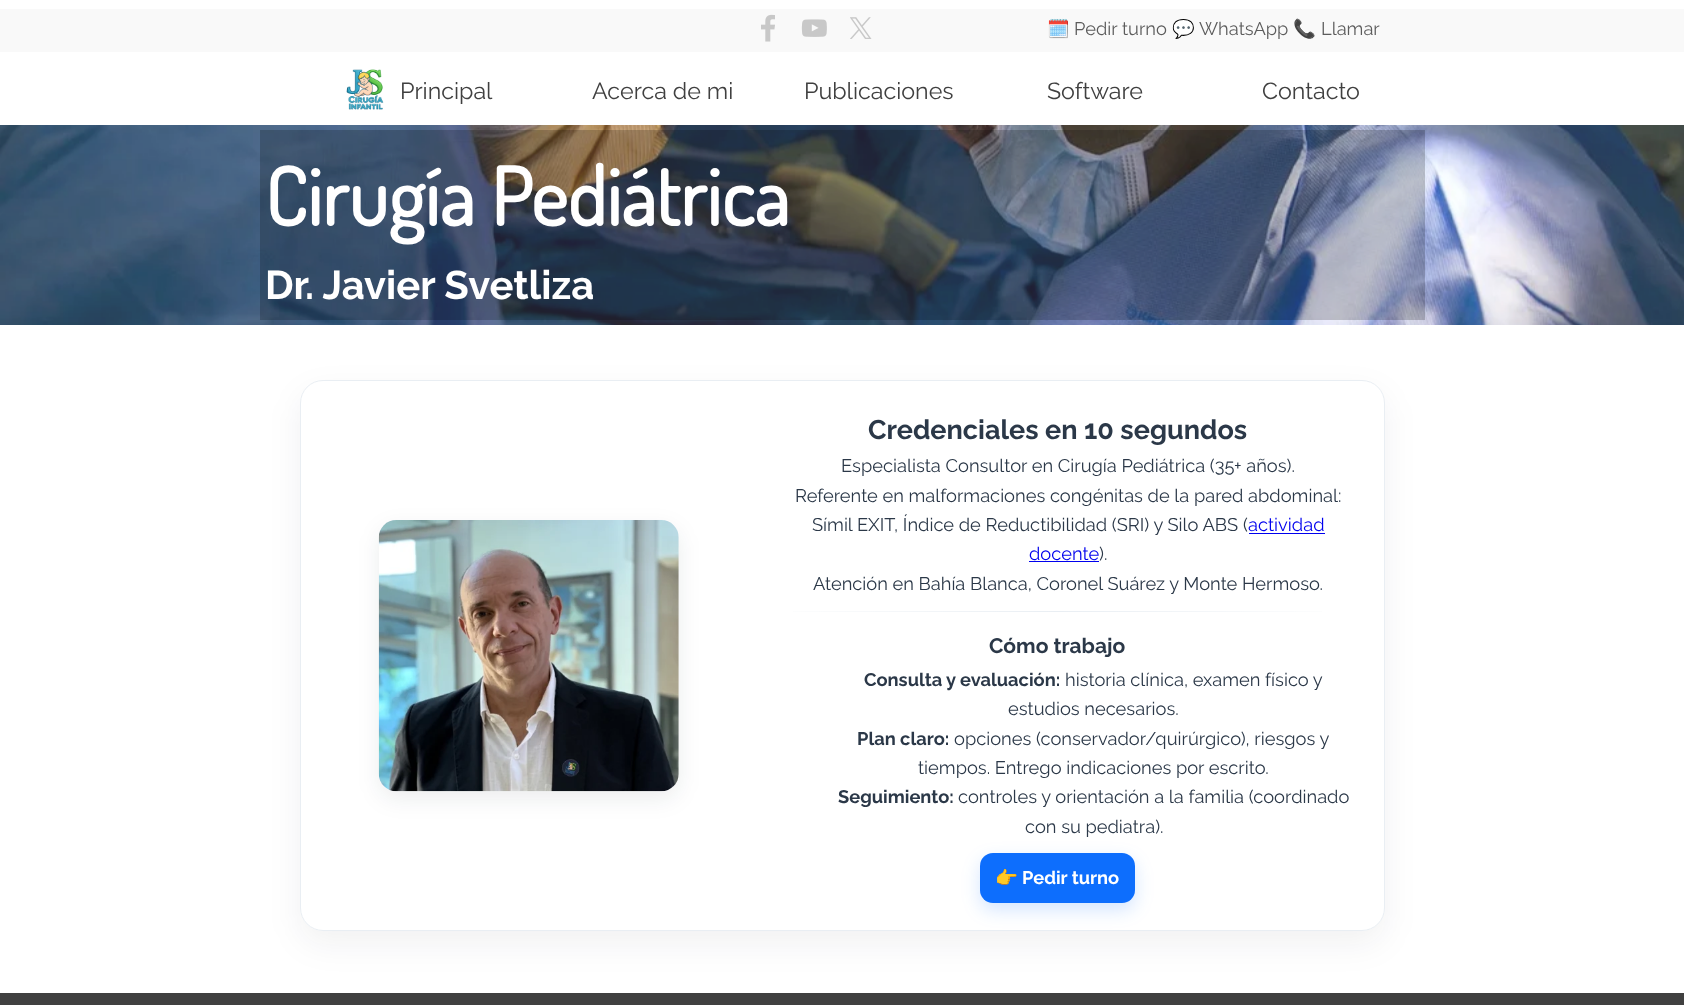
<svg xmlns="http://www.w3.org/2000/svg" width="1684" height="1005">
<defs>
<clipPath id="clip1"><path d="M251 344h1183v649h-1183zm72 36h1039c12.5 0 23 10.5 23 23v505c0 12.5-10.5 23-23 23h-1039c-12.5 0-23-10.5-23-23v-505c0-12.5 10.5-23 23-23z" clip-rule="evenodd"/></clipPath>
<linearGradient id="g1" gradientUnits="userSpaceOnUse" x1="759" y1="612" x2="1356" y2="612"><stop offset="0" stop-color="#fff"/><stop offset="0.5" stop-color="#e9eef3"/><stop offset="1" stop-color="#fff"/></linearGradient>
</defs>
<rect width="100%" height="100%" fill="#fff"/>
<rect y="9" width="1684" height="43" fill="#f9f9f9"/>
<image x="761" y="14" width="14" height="28" href="media/1.png"/>
<image x="801" y="19" width="26" height="18" href="media/2.png"/>
<image x="850" y="17" width="22" height="22" href="media/3.png"/>
<text x="1047" y="35" style="font-family:Noto Color Emoji;font-size:18.3px;fill:#5c5c5c">🗓️</text>
<text x="1074" y="35" style="font-family:Raleway;font-size:18.3px;fill:#5c5c5c">Pedir turno</text>
<text x="1172" y="35" style="font-family:Noto Color Emoji;font-size:18.3px;fill:#5c5c5c">💬</text>
<text x="1199" y="35" style="font-family:Raleway;font-size:18.3px;fill:#5c5c5c">WhatsApp</text>
<text x="1293" y="35" style="font-family:Noto Color Emoji;font-size:18.3px;fill:#5c5c5c">📞</text>
<text x="1321" y="35" style="font-family:Raleway;font-size:18.3px;fill:#5c5c5c">Llamar</text>
<image x="346" y="69" width="38" height="41" href="media/4.png"/>
<text x="400" y="99" style="font-family:Raleway;font-size:23.25px;fill:#404040">Principal</text>
<text x="592" y="99" style="font-family:Raleway;font-size:23.25px;fill:#404040">Acerca de mi</text>
<text x="804" y="99" style="font-family:Raleway;font-size:23.25px;fill:#404040">Publicaciones</text>
<text x="1047" y="99" style="font-family:Raleway;font-size:23.25px;fill:#404040">Software</text>
<text x="1262" y="99" style="font-family:Raleway;font-size:23.25px;fill:#404040">Contacto</text>
<image x="0" y="125" width="1684" height="200" href="media/5.png"/>
<rect x="260" y="130" width="1165" height="190" fill="#00000033"/>
<text x="265" y="226" style="font-family:Dosis;font-size:80px;font-weight:bold;fill:#fff">Cirugía Pediátrica</text>
<text x="265" y="299" style="font-family:Raleway;font-size:40px;font-weight:bold;fill:#fff">Dr. Javier Svetliza</text>
<g clip-path="url(#clip1)">
<rect x="300" y="393" width="1085" height="551" rx="23" fill="#1018280f" filter="blur(16px)"/>
</g>
<rect x="300.5" y="380.5" width="1084" height="550" rx="22.5" fill="none" stroke="#e9eef3"/>
<rect x="379" y="528" width="300" height="271" rx="18" fill="#10182814" filter="blur(11px)"/>
<image x="378" y="520" width="301" height="272" href="media/6.png"/>
<text x="868" y="439" style="font-family:Raleway;font-size:27px;font-weight:bold;fill:#2b3848">Credenciales en 10 segundos</text>
<text x="841" y="472" style="font-family:Raleway;font-size:18.3px;fill:#2b3848">Especialista Consultor en Cirugía Pediátrica (35+ años).</text>
<text x="795" y="502" style="font-family:Raleway;font-size:18.3px;fill:#2b3848">Referente en malformaciones congénitas de la pared abdominal:</text>
<text x="812" y="531" style="font-family:Raleway;font-size:18.3px;fill:#2b3848">Símil EXIT, Índice de Reductibilidad (SRI) y Silo ABS</text>
<text x="1243" y="531" style="font-family:Raleway;font-size:18.3px;fill:#2b3848">(</text>
<text x="1248" y="531" style="font-family:Raleway;font-size:18.3px;fill:#00e">actividad</text>
<rect x="1249" y="533" width="76" height="1" fill="#00e"/>
<text x="1029" y="560" style="font-family:Raleway;font-size:18.3px;fill:#00e">docente</text>
<rect x="1029" y="561" width="70" height="1" fill="#00e"/>
<text x="1099" y="560" style="font-family:Raleway;font-size:18.3px;fill:#2b3848">).</text>
<text x="813" y="590" style="font-family:Raleway;font-size:18.3px;fill:#2b3848">Atención en Bahía Blanca, Coronel Suárez y Monte Hermoso.</text>
<rect x="793" y="611" width="529" height="1" fill="url(#g1)"/>
<text x="989" y="653" style="font-family:Raleway;font-size:21px;font-weight:bold;fill:#2b3848">Cómo trabajo</text>
<text x="864" y="686" style="font-family:Raleway;font-size:18.3px;font-weight:bold;fill:#2b3848">Consulta y evaluación:</text>
<text x="1065" y="686" style="font-family:Raleway;font-size:18.3px;fill:#2b3848">historia clínica, examen físico y</text>
<text x="1008" y="715" style="font-family:Raleway;font-size:18.3px;fill:#2b3848">estudios necesarios.</text>
<text x="857" y="745" style="font-family:Raleway;font-size:18.3px;font-weight:bold;fill:#2b3848">Plan claro:</text>
<text x="954" y="745" style="font-family:Raleway;font-size:18.3px;fill:#2b3848">opciones (conservador/quirúrgico), riesgos y</text>
<text x="918" y="774" style="font-family:Raleway;font-size:18.3px;fill:#2b3848">tiempos. Entrego indicaciones por escrito.</text>
<text x="838" y="803" style="font-family:Raleway;font-size:18.3px;font-weight:bold;fill:#2b3848">Seguimiento:</text>
<text x="958" y="803" style="font-family:Raleway;font-size:18.3px;fill:#2b3848">controles y orientación a la familia (coordinado</text>
<text x="1025" y="833" style="font-family:Raleway;font-size:18.3px;fill:#2b3848">con su pediatra).</text>
<rect x="980" y="860" width="155" height="50" rx="13" fill="#0d6efd2e" filter="blur(9px)"/>
<rect x="980" y="853" width="155" height="50" rx="13" fill="#0d6efd"/>
<text x="995" y="884" style="font-family:Noto Color Emoji;font-size:18.3px;font-weight:bold;fill:#fff">👉</text>
<text x="1022" y="884" style="font-family:Raleway;font-size:18.3px;font-weight:bold;fill:#fff">Pedir turno</text>
<rect y="993" width="1684" height="12" fill="#404040"/>
</svg>
